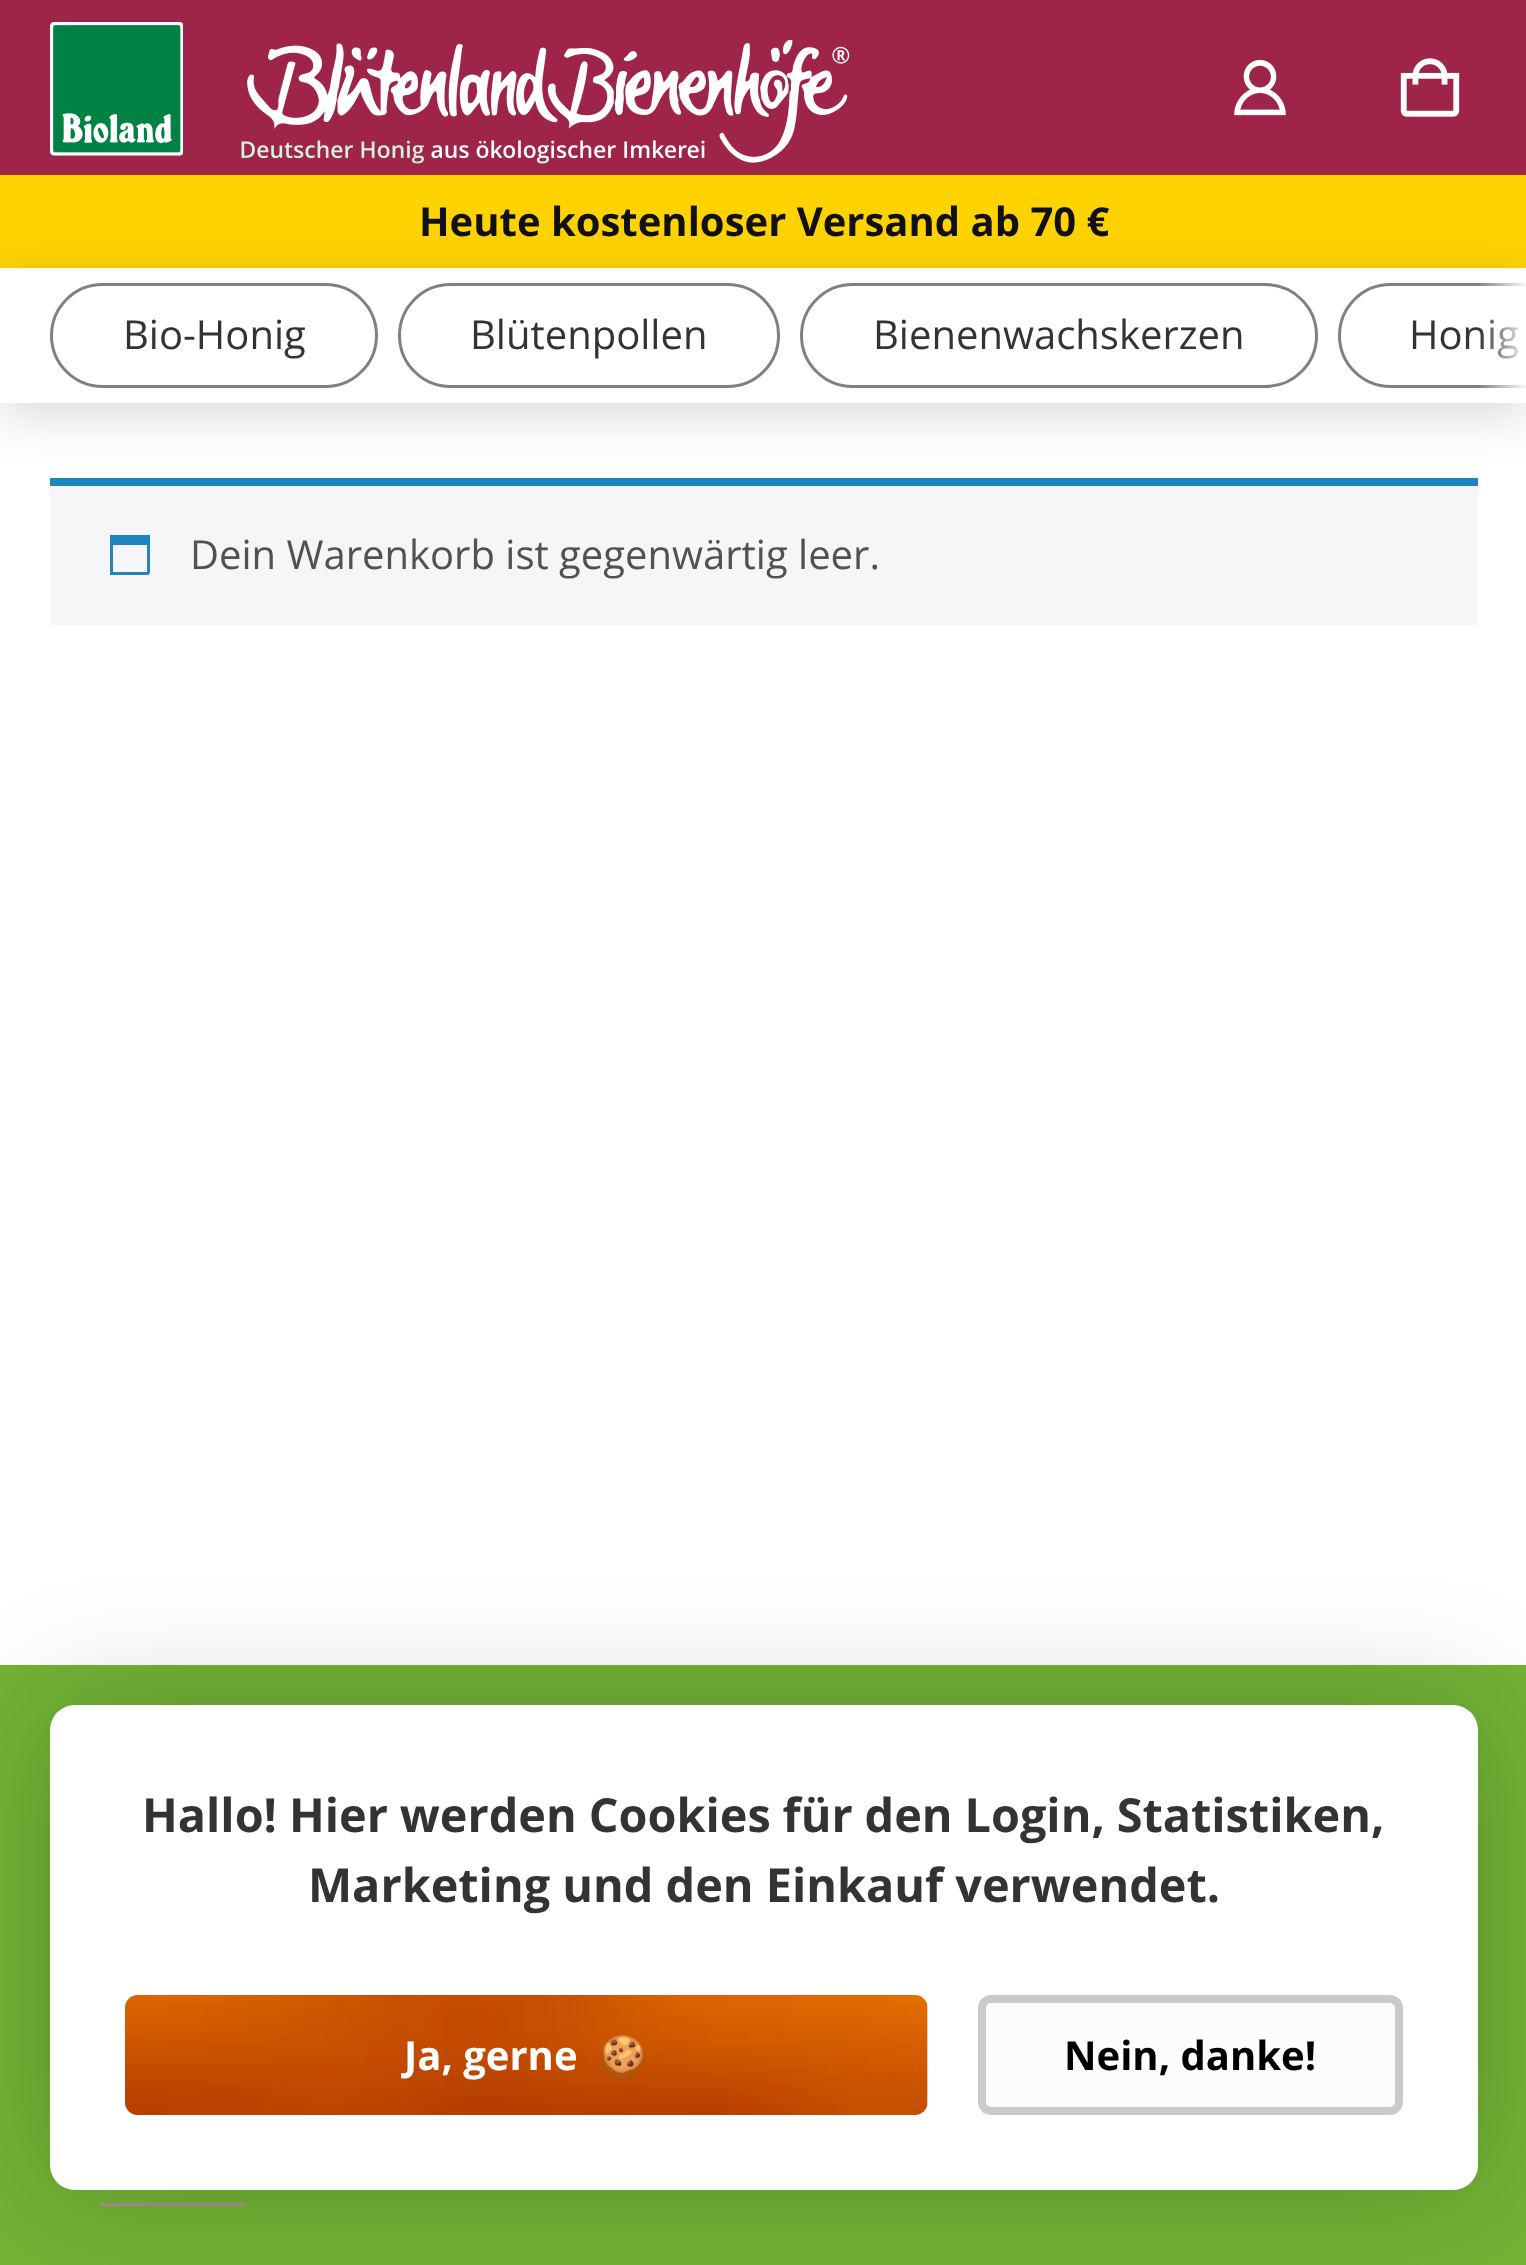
<svg xmlns="http://www.w3.org/2000/svg" width="1526" height="2265">
<defs>
<linearGradient id="g1" gradientUnits="userSpaceOnUse" x1="1478" y1="334" x2="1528" y2="334"><stop offset="0" stop-color="#fff" stop-opacity="0"/><stop offset="1" stop-color="#fff"/></linearGradient>
</defs>
<rect width="100%" height="100%" fill="#fff"/>
<rect width="1526" height="175" fill="#9f244a"/>
<image x="50" y="22" width="133" height="134" href="media/1.png"/>
<image x="241" y="40" width="609" height="124" href="media/2.png"/>
<image x="1234" y="59" width="52" height="57" href="media/3.png"/>
<image x="1400" y="58" width="60" height="59" href="media/4.png"/>
<rect y="175" width="1526" height="93" fill="#ffd300"/>
<text x="419" y="236" style="font-family:Open Sans;font-size:40px;font-weight:bold;fill:#111">Heute kostenloser Versand ab 70 €</text>
<rect x="50" y="486" width="1428" height="139" fill="#f6f5f8"/>
<rect x="50" y="478" width="1428" height="8" fill="#1e85be"/>
<rect y="280" width="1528" height="135" fill="#00000026" filter="blur(25px)"/>
<rect y="268" width="1526" height="135" fill="#fff"/>
<rect x="1339.5" y="284.5" width="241" height="102" rx="51" fill="none" stroke="#808080" stroke-width="3"/>
<text x="1409" y="349" style="font-family:Open Sans;font-size:40px;fill:#333">Honig</text>
<rect x="1479" y="283" width="47" height="105" fill="url(#g1)"/>
<rect x="51.5" y="284.5" width="325" height="102" rx="51" fill="none" stroke="#808080" stroke-width="3"/>
<text x="123" y="349" style="font-family:Open Sans;font-size:40px;fill:#333">Bio-Honig</text>
<rect x="399.5" y="284.5" width="379" height="102" rx="51" fill="none" stroke="#808080" stroke-width="3"/>
<text x="470" y="349" style="font-family:Open Sans;font-size:40px;fill:#333">Blütenpollen</text>
<rect x="801.5" y="284.5" width="515" height="102" rx="51" fill="none" stroke="#808080" stroke-width="3"/>
<text x="873" y="349" style="font-family:Open Sans;font-size:40px;fill:#333">Bienenwachskerzen</text>
<path d="M147 545h-34v27h34zm3-10v31c0 10 1 9-9 9h-31v-40z" fill="#1e85be"/>
<text x="190" y="569" style="font-family:Open Sans;font-size:40px;fill:#515151">Dein Warenkorb ist gegenwärtig leer.</text>
<rect y="1665" width="1526" height="600" fill="#72b335"/>
<rect x="100" y="2203" width="145" height="3" fill="#a59393"/>
<rect x="50" y="1705" width="1428" height="485" rx="25" fill="#00000033" filter="blur(62.5px)"/>
<rect x="50" y="1705" width="1428" height="485" rx="25" fill="#fff"/>
<text x="142" y="1832" word-spacing="-0.25" style="font-family:Open Sans;font-size:46.8px;font-weight:bold;fill:#333">Hallo! Hier werden Cookies für den Login, Statistiken,</text>
<text x="308" y="1902" style="font-family:Open Sans;font-size:46.8px;font-weight:bold;fill:#333">Marketing und den Einkauf verwendet.</text>
<rect x="125" y="1995" width="803" height="120" rx="13" fill="#efefef"/>
<image x="125" y="1995" width="803" height="120" href="media/5.png"/>
<text x="404" y="2070" style="font-family:Open Sans;font-size:40px;font-weight:bold;fill:#fff">Ja, gerne</text>
<text x="598" y="2070" style="font-family:Noto Color Emoji;font-size:40px;font-weight:bold;fill:#fff">🍪</text>
<rect x="982" y="1999" width="417" height="112" rx="9" fill="#fcfcfc" stroke="#cacaca" stroke-width="8"/>
<text x="1064" y="2070" style="font-family:Open Sans;font-size:40px;font-weight:bold;fill:#000">Nein, danke!</text>
</svg>
